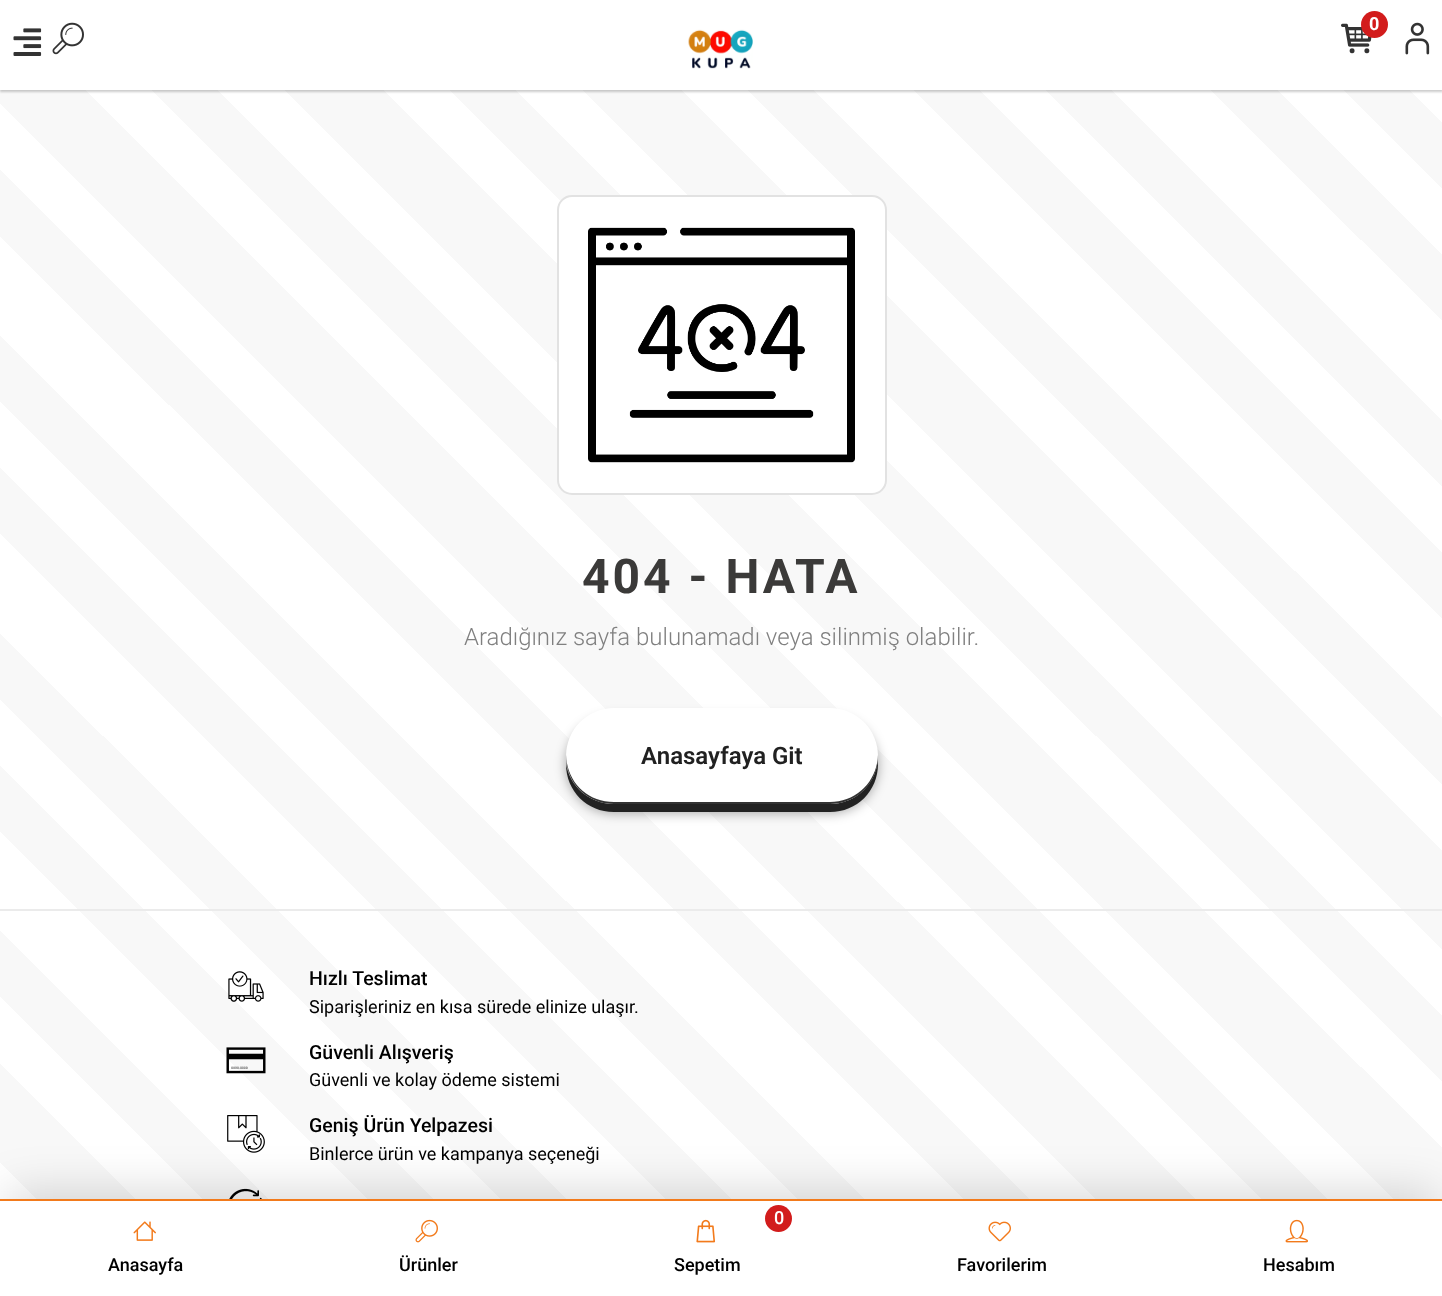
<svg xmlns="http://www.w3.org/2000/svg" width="1442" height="1296">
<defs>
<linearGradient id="g1" gradientUnits="userSpaceOnUse" x1="-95" y1="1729" x2="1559" y2="74"><stop offset="0" stop-color="#fff"/><stop offset="0.01" stop-color="#fff"/><stop offset="0.01" stop-color="#f8f8f8"/><stop offset="0.01" stop-color="#fff"/><stop offset="0.02" stop-color="#fff"/><stop offset="0.02" stop-color="#f8f8f8"/><stop offset="0.03" stop-color="#f8f8f8"/><stop offset="0.03" stop-color="#fff"/><stop offset="0.03" stop-color="#f8f8f8"/><stop offset="0.04" stop-color="#f8f8f8"/><stop offset="0.04" stop-color="#fff"/><stop offset="0.04" stop-color="#f8f8f8"/><stop offset="0.05" stop-color="#f8f8f8"/><stop offset="0.05" stop-color="#fff"/><stop offset="0.06" stop-color="#fff"/><stop offset="0.06" stop-color="#f8f8f8"/><stop offset="0.06" stop-color="#fff"/><stop offset="0.07" stop-color="#fff"/><stop offset="0.07" stop-color="#f8f8f8"/><stop offset="0.08" stop-color="#f8f8f8"/><stop offset="0.08" stop-color="#fff"/><stop offset="0.08" stop-color="#f8f8f8"/><stop offset="0.09" stop-color="#f8f8f8"/><stop offset="0.09" stop-color="#fff"/><stop offset="0.1" stop-color="#fff"/><stop offset="0.1" stop-color="#f8f8f8"/><stop offset="0.1" stop-color="#fff"/><stop offset="0.11" stop-color="#fff"/><stop offset="0.11" stop-color="#f8f8f8"/><stop offset="0.12" stop-color="#f8f8f8"/><stop offset="0.12" stop-color="#fff"/><stop offset="0.12" stop-color="#f8f8f8"/><stop offset="0.13" stop-color="#f8f8f8"/><stop offset="0.13" stop-color="#fff"/><stop offset="0.13" stop-color="#f8f8f8"/><stop offset="0.14" stop-color="#f8f8f8"/><stop offset="0.14" stop-color="#fff"/><stop offset="0.15" stop-color="#fff"/><stop offset="0.15" stop-color="#f8f8f8"/><stop offset="0.15" stop-color="#fff"/><stop offset="0.16" stop-color="#fff"/><stop offset="0.16" stop-color="#f8f8f8"/><stop offset="0.17" stop-color="#f8f8f8"/><stop offset="0.17" stop-color="#fff"/><stop offset="0.17" stop-color="#f8f8f8"/><stop offset="0.18" stop-color="#f8f8f8"/><stop offset="0.18" stop-color="#fff"/><stop offset="0.19" stop-color="#fff"/><stop offset="0.19" stop-color="#f8f8f8"/><stop offset="0.19" stop-color="#fff"/><stop offset="0.2" stop-color="#fff"/><stop offset="0.2" stop-color="#f8f8f8"/><stop offset="0.21" stop-color="#f8f8f8"/><stop offset="0.21" stop-color="#fff"/><stop offset="0.21" stop-color="#f8f8f8"/><stop offset="0.22" stop-color="#f8f8f8"/><stop offset="0.22" stop-color="#fff"/><stop offset="0.22" stop-color="#f8f8f8"/><stop offset="0.23" stop-color="#f8f8f8"/><stop offset="0.23" stop-color="#fff"/><stop offset="0.24" stop-color="#fff"/><stop offset="0.24" stop-color="#f8f8f8"/><stop offset="0.24" stop-color="#fff"/><stop offset="0.25" stop-color="#fff"/><stop offset="0.25" stop-color="#f8f8f8"/><stop offset="0.26" stop-color="#f8f8f8"/><stop offset="0.26" stop-color="#fff"/><stop offset="0.26" stop-color="#f8f8f8"/><stop offset="0.27" stop-color="#f8f8f8"/><stop offset="0.27" stop-color="#fff"/><stop offset="0.28" stop-color="#fff"/><stop offset="0.28" stop-color="#f8f8f8"/><stop offset="0.28" stop-color="#fff"/><stop offset="0.29" stop-color="#fff"/><stop offset="0.29" stop-color="#f8f8f8"/><stop offset="0.29" stop-color="#fff"/><stop offset="0.3" stop-color="#fff"/><stop offset="0.3" stop-color="#f8f8f8"/><stop offset="0.31" stop-color="#f8f8f8"/><stop offset="0.31" stop-color="#fff"/><stop offset="0.31" stop-color="#f8f8f8"/><stop offset="0.32" stop-color="#f8f8f8"/><stop offset="0.32" stop-color="#fff"/><stop offset="0.33" stop-color="#fff"/><stop offset="0.33" stop-color="#f8f8f8"/><stop offset="0.33" stop-color="#fff"/><stop offset="0.34" stop-color="#fff"/><stop offset="0.34" stop-color="#f8f8f8"/><stop offset="0.35" stop-color="#f8f8f8"/><stop offset="0.35" stop-color="#fff"/><stop offset="0.35" stop-color="#f8f8f8"/><stop offset="0.36" stop-color="#f8f8f8"/><stop offset="0.36" stop-color="#fff"/><stop offset="0.37" stop-color="#fff"/><stop offset="0.37" stop-color="#f8f8f8"/><stop offset="0.37" stop-color="#fff"/><stop offset="0.38" stop-color="#fff"/><stop offset="0.38" stop-color="#f8f8f8"/><stop offset="0.38" stop-color="#fff"/><stop offset="0.39" stop-color="#fff"/><stop offset="0.39" stop-color="#f8f8f8"/><stop offset="0.4" stop-color="#f8f8f8"/><stop offset="0.4" stop-color="#fff"/><stop offset="0.4" stop-color="#f8f8f8"/><stop offset="0.41" stop-color="#f8f8f8"/><stop offset="0.41" stop-color="#fff"/><stop offset="0.42" stop-color="#fff"/><stop offset="0.42" stop-color="#f8f8f8"/><stop offset="0.42" stop-color="#fff"/><stop offset="0.43" stop-color="#fff"/><stop offset="0.43" stop-color="#f8f8f8"/><stop offset="0.44" stop-color="#f8f8f8"/><stop offset="0.44" stop-color="#fff"/><stop offset="0.44" stop-color="#f8f8f8"/><stop offset="0.45" stop-color="#f8f8f8"/><stop offset="0.45" stop-color="#fff"/><stop offset="0.46" stop-color="#fff"/><stop offset="0.46" stop-color="#f8f8f8"/><stop offset="0.46" stop-color="#fff"/><stop offset="0.47" stop-color="#fff"/><stop offset="0.47" stop-color="#f8f8f8"/><stop offset="0.47" stop-color="#fff"/><stop offset="0.48" stop-color="#fff"/><stop offset="0.48" stop-color="#f8f8f8"/><stop offset="0.49" stop-color="#f8f8f8"/><stop offset="0.49" stop-color="#fff"/><stop offset="0.49" stop-color="#f8f8f8"/><stop offset="0.5" stop-color="#f8f8f8"/><stop offset="0.5" stop-color="#fff"/><stop offset="0.51" stop-color="#fff"/><stop offset="0.51" stop-color="#f8f8f8"/><stop offset="0.51" stop-color="#fff"/><stop offset="0.52" stop-color="#fff"/><stop offset="0.52" stop-color="#f8f8f8"/><stop offset="0.53" stop-color="#f8f8f8"/><stop offset="0.53" stop-color="#fff"/><stop offset="0.53" stop-color="#f8f8f8"/><stop offset="0.54" stop-color="#f8f8f8"/><stop offset="0.54" stop-color="#fff"/><stop offset="0.54" stop-color="#f8f8f8"/><stop offset="0.55" stop-color="#f8f8f8"/><stop offset="0.55" stop-color="#fff"/><stop offset="0.56" stop-color="#fff"/><stop offset="0.56" stop-color="#f8f8f8"/><stop offset="0.56" stop-color="#fff"/><stop offset="0.57" stop-color="#fff"/><stop offset="0.57" stop-color="#f8f8f8"/><stop offset="0.58" stop-color="#f8f8f8"/><stop offset="0.58" stop-color="#fff"/><stop offset="0.58" stop-color="#f8f8f8"/><stop offset="0.59" stop-color="#f8f8f8"/><stop offset="0.59" stop-color="#fff"/><stop offset="0.6" stop-color="#fff"/><stop offset="0.6" stop-color="#f8f8f8"/><stop offset="0.6" stop-color="#fff"/><stop offset="0.61" stop-color="#fff"/><stop offset="0.61" stop-color="#f8f8f8"/><stop offset="0.62" stop-color="#f8f8f8"/><stop offset="0.62" stop-color="#fff"/><stop offset="0.62" stop-color="#f8f8f8"/><stop offset="0.63" stop-color="#f8f8f8"/><stop offset="0.63" stop-color="#fff"/><stop offset="0.63" stop-color="#f8f8f8"/><stop offset="0.64" stop-color="#f8f8f8"/><stop offset="0.64" stop-color="#fff"/><stop offset="0.65" stop-color="#fff"/><stop offset="0.65" stop-color="#f8f8f8"/><stop offset="0.65" stop-color="#fff"/><stop offset="0.66" stop-color="#fff"/><stop offset="0.66" stop-color="#f8f8f8"/><stop offset="0.67" stop-color="#f8f8f8"/><stop offset="0.67" stop-color="#fff"/><stop offset="0.67" stop-color="#f8f8f8"/><stop offset="0.68" stop-color="#f8f8f8"/><stop offset="0.68" stop-color="#fff"/><stop offset="0.69" stop-color="#fff"/><stop offset="0.69" stop-color="#f8f8f8"/><stop offset="0.69" stop-color="#fff"/><stop offset="0.7" stop-color="#fff"/><stop offset="0.7" stop-color="#f8f8f8"/><stop offset="0.71" stop-color="#f8f8f8"/><stop offset="0.71" stop-color="#fff"/><stop offset="0.71" stop-color="#f8f8f8"/><stop offset="0.72" stop-color="#f8f8f8"/><stop offset="0.72" stop-color="#fff"/><stop offset="0.72" stop-color="#f8f8f8"/><stop offset="0.73" stop-color="#f8f8f8"/><stop offset="0.73" stop-color="#fff"/><stop offset="0.74" stop-color="#fff"/><stop offset="0.74" stop-color="#f8f8f8"/><stop offset="0.74" stop-color="#fff"/><stop offset="0.75" stop-color="#fff"/><stop offset="0.75" stop-color="#f8f8f8"/><stop offset="0.76" stop-color="#f8f8f8"/><stop offset="0.76" stop-color="#fff"/><stop offset="0.76" stop-color="#f8f8f8"/><stop offset="0.77" stop-color="#f8f8f8"/><stop offset="0.77" stop-color="#fff"/><stop offset="0.78" stop-color="#fff"/><stop offset="0.78" stop-color="#f8f8f8"/><stop offset="0.78" stop-color="#fff"/><stop offset="0.79" stop-color="#fff"/><stop offset="0.79" stop-color="#f8f8f8"/><stop offset="0.79" stop-color="#fff"/><stop offset="0.8" stop-color="#fff"/><stop offset="0.8" stop-color="#f8f8f8"/><stop offset="0.81" stop-color="#f8f8f8"/><stop offset="0.81" stop-color="#fff"/><stop offset="0.81" stop-color="#f8f8f8"/><stop offset="0.82" stop-color="#f8f8f8"/><stop offset="0.82" stop-color="#fff"/><stop offset="0.83" stop-color="#fff"/><stop offset="0.83" stop-color="#f8f8f8"/><stop offset="0.83" stop-color="#fff"/><stop offset="0.84" stop-color="#fff"/><stop offset="0.84" stop-color="#f8f8f8"/><stop offset="0.85" stop-color="#f8f8f8"/><stop offset="0.85" stop-color="#fff"/><stop offset="0.85" stop-color="#f8f8f8"/><stop offset="0.86" stop-color="#f8f8f8"/><stop offset="0.86" stop-color="#fff"/><stop offset="0.87" stop-color="#fff"/><stop offset="0.87" stop-color="#f8f8f8"/><stop offset="0.87" stop-color="#fff"/><stop offset="0.88" stop-color="#fff"/><stop offset="0.88" stop-color="#f8f8f8"/><stop offset="0.88" stop-color="#fff"/><stop offset="0.89" stop-color="#fff"/><stop offset="0.89" stop-color="#f8f8f8"/><stop offset="0.9" stop-color="#f8f8f8"/><stop offset="0.9" stop-color="#fff"/><stop offset="0.9" stop-color="#f8f8f8"/><stop offset="0.91" stop-color="#f8f8f8"/><stop offset="0.91" stop-color="#fff"/><stop offset="0.92" stop-color="#fff"/><stop offset="0.92" stop-color="#f8f8f8"/><stop offset="0.92" stop-color="#fff"/><stop offset="0.93" stop-color="#fff"/><stop offset="0.93" stop-color="#f8f8f8"/><stop offset="0.94" stop-color="#f8f8f8"/><stop offset="0.94" stop-color="#fff"/><stop offset="0.94" stop-color="#f8f8f8"/><stop offset="0.95" stop-color="#f8f8f8"/><stop offset="0.95" stop-color="#fff"/><stop offset="0.96" stop-color="#fff"/><stop offset="0.96" stop-color="#f8f8f8"/><stop offset="0.96" stop-color="#fff"/><stop offset="0.97" stop-color="#fff"/><stop offset="0.97" stop-color="#f8f8f8"/><stop offset="0.97" stop-color="#fff"/><stop offset="0.98" stop-color="#fff"/><stop offset="0.98" stop-color="#f8f8f8"/><stop offset="0.99" stop-color="#f8f8f8"/><stop offset="0.99" stop-color="#fff"/><stop offset="0.99" stop-color="#f8f8f8"/><stop offset="1" stop-color="#f8f8f8"/></linearGradient>
</defs>
<rect width="100%" height="100%" fill="#fff"/>
<rect y="90" width="1442" height="1109" fill="url(#g1)"/>
<rect y="2" width="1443" height="90" fill="#00000033" filter="blur(1px)"/>
<rect width="1442" height="90" fill="#fff"/>
<image x="13" y="28" width="29" height="28" href="media/1.png"/>
<image x="52" y="22" width="32" height="33" href="media/2.png"/>
<image x="688" y="29" width="65" height="40" href="media/3.png"/>
<image x="1341" y="23" width="31" height="31" href="media/4.png"/>
<circle cx="1374.5" cy="24.5" r="13.5" fill="#d21c1c"/>
<text x="1369" y="30" style="font-family:Roboto;font-size:18px;font-weight:bold;fill:#fff">0</text>
<image x="1405" y="22" width="25" height="33" href="media/5.png"/>
<rect x="558" y="196" width="328" height="298" rx="14" fill="#fff" stroke="#e2e2e2" stroke-width="2"/>
<image x="588" y="227" width="267" height="236" href="media/6.png"/>
<text x="582" y="593" style="font-family:Roboto;font-size:48px;font-weight:bold;letter-spacing:3px;fill:#3b3a39">404 - HATA</text>
<text x="464" y="645" style="font-family:Roboto;font-size:24px;font-weight:300;fill:#808080">Aradığınız sayfa bulunamadı veya silinmiş olabilir.</text>
<rect x="566" y="717" width="312" height="96" rx="48" fill="#00000059" filter="blur(6px)"/>
<path d="M566 763v1c0 27 21 48 48 48h216c27 0 48-21 48-48l-1-7c0 26-21 47-47 47h-216c-25 0-45-18-48-41z" fill="#222"/>
<rect x="566" y="708" width="312" height="96" rx="48" fill="#fff"/>
<path d="M566 755v1c0 27 21 48 48 48h216c27 0 48-21 48-48v-1c-1 27-22 47-48 47h-216c-27 0-47-20-48-47z" fill="#333"/>
<text x="641" y="764" style="font-family:Roboto;font-size:24px;font-weight:600;fill:#212121">Anasayfaya Git</text>
<rect y="909" width="1442" height="2" fill="#ebebeb"/>
<image x="228" y="971" width="36" height="31" href="media/7.png"/>
<text x="309" y="985" style="font-family:Roboto;font-size:19.5px;font-weight:500;fill:#000">Hızlı Teslimat</text>
<text x="309" y="1013" style="font-family:Roboto;font-size:18px;fill:#000">Siparişleriniz en kısa sürede elinize ulaşır.</text>
<image x="226" y="1047" width="40" height="27" href="media/8.png"/>
<text x="309" y="1059" style="font-family:Roboto;font-size:19.5px;font-weight:500;fill:#000">Güvenli Alışveriş</text>
<text x="309" y="1086" style="font-family:Roboto;font-size:18px;fill:#000">Güvenli ve kolay ödeme sistemi</text>
<image x="227" y="1115" width="38" height="38" href="media/9.png"/>
<text x="309" y="1132" style="font-family:Roboto;font-size:19.5px;font-weight:500;fill:#000">Geniş Ürün Yelpazesi</text>
<text x="309" y="1160" style="font-family:Roboto;font-size:18px;fill:#000">Binlerce ürün ve kampanya seçeneği</text>
<image x="229" y="1188" width="33" height="11" href="media/10.png"/>
<rect x="8" y="1191" width="1428" height="83" fill="#00000026" filter="blur(22.5px)"/>
<rect y="1201" width="1442" height="95" fill="#fff"/>
<rect y="1199" width="1442" height="2" fill="#f27a1b"/>
<image x="133" y="1221" width="23" height="20" href="media/11.png"/>
<text x="108" y="1271" style="font-family:Roboto;font-size:18px;font-weight:500;fill:#000">Anasayfa</text>
<image x="415" y="1219" width="23" height="24" href="media/12.png"/>
<text x="399" y="1271" style="font-family:Roboto;font-size:18px;font-weight:500;fill:#000">Ürünler</text>
<image x="696" y="1219" width="20" height="24" href="media/13.png"/>
<circle cx="778.5" cy="1218.5" r="13.5" fill="#d21c1c"/>
<text x="774" y="1224" style="font-family:Roboto;font-size:18px;font-weight:500;fill:#fff">0</text>
<text x="674" y="1271" style="font-family:Roboto;font-size:18px;font-weight:500;fill:#000">Sepetim</text>
<image x="988" y="1221" width="23" height="21" href="media/14.png"/>
<text x="957" y="1271" style="font-family:Roboto;font-size:18px;font-weight:500;fill:#000">Favorilerim</text>
<image x="1285" y="1219" width="23" height="24" href="media/15.png"/>
<text x="1263" y="1271" style="font-family:Roboto;font-size:18px;font-weight:500;fill:#000">Hesabım</text>
</svg>
